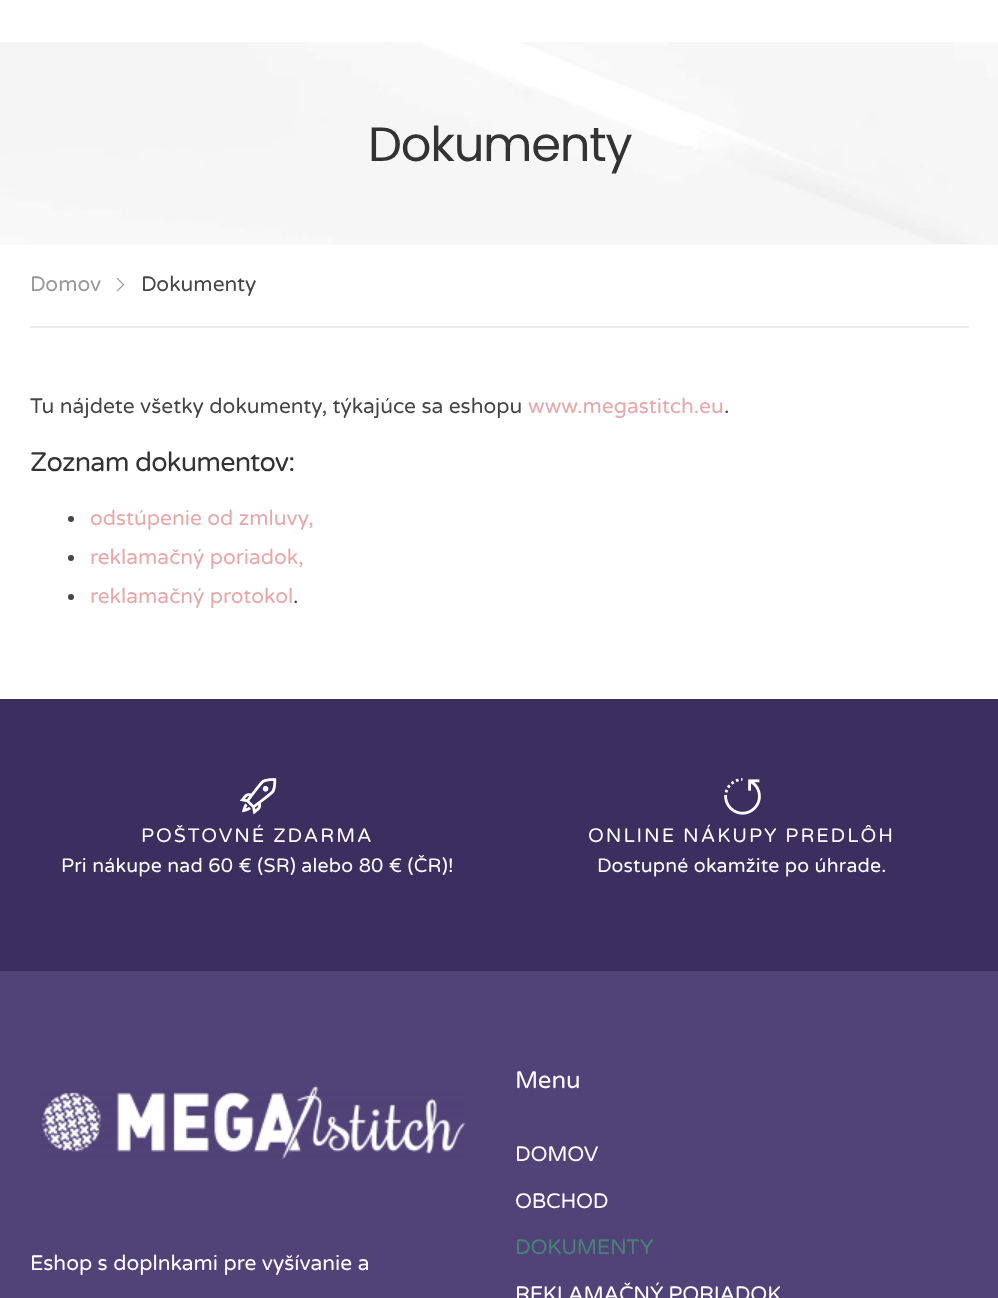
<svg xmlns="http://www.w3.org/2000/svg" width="998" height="1298">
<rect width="100%" height="100%" fill="#fff"/>
<rect y="244" width="998" height="1" fill="#fafafa"/>
<image x="0" y="42" width="998" height="202" href="media/1.png"/>
<text x="368" y="161" style="font-family:Poppins;font-size:48px;letter-spacing:-1.25px;fill:#333">Dokumenty</text>
<rect x="30" y="326" width="939" height="2" fill="#ebebeb"/>
<text x="30" y="291" style="font-family:Varela Round;font-size:21px;fill:#999">Domov</text>
<image x="116" y="277" width="9" height="15" href="media/2.png"/>
<text x="141" y="291" style="font-family:Varela Round;font-size:21px;fill:#464646">Dokumenty</text>
<text x="30" y="413" style="font-family:Varela Round;font-size:21px;fill:#464646">Tu nájdete všetky dokumenty, týkajúce sa eshopu</text>
<text x="528" y="413" style="font-family:Varela Round;font-size:21px;fill:#e6a8a8">www.megastitch.eu</text>
<text x="724" y="413" style="font-family:Varela Round;font-size:21px;fill:#464646">.</text>
<text x="30" y="471" style="font-family:Varela Round;font-size:27px;letter-spacing:-0.8px;fill:#333">Zoznam dokumentov:</text>
<circle cx="71" cy="519" r="3" fill="#464646"/>
<text x="90" y="525" style="font-family:Varela Round;font-size:21px;fill:#e6a8a8">odstúpenie od zmluvy,</text>
<circle cx="71" cy="558" r="3" fill="#464646"/>
<text x="90" y="564" style="font-family:Varela Round;font-size:21px;fill:#e6a8a8">reklamačný poriadok,</text>
<circle cx="71" cy="597" r="3" fill="#464646"/>
<text x="90" y="603" style="font-family:Varela Round;font-size:21px;fill:#e6a8a8">reklamačný protokol</text>
<text x="293" y="603" style="font-family:Varela Round;font-size:21px;fill:#464646">.</text>
<rect y="699" width="998" height="272" fill="#3a2f5e"/>
<image x="240" y="778" width="37" height="37" href="media/3.png"/>
<text x="141" y="842" style="font-family:Varela Round;font-size:19.5px;letter-spacing:1.95px;fill:#fff">POŠTOVNÉ ZDARMA</text>
<text x="61" y="872" style="font-family:Varela Round;font-size:19.5px;letter-spacing:0.2px;fill:#fff">Pri nákupe nad 60 € (SR) alebo 80 € (ČR)!</text>
<image x="724" y="778" width="37" height="37" href="media/4.png"/>
<text x="588" y="842" style="font-family:Varela Round;font-size:19.5px;letter-spacing:1.95px;fill:#fff">ONLINE NÁKUPY PREDLÔH</text>
<text x="597" y="872" style="font-family:Varela Round;font-size:19.5px;letter-spacing:0.2px;fill:#fff">Dostupné okamžite po úhrade.</text>
<rect y="971" width="998" height="327" fill="#514378"/>
<image x="41" y="1085" width="425" height="75" href="media/5.png"/>
<text x="30" y="1270" style="font-family:Varela Round;font-size:21px;fill:#fff">Eshop s doplnkami pre vyšívanie a</text>
<text x="515" y="1088" style="font-family:Varela Round;font-size:24px;fill:#fff">Menu</text>
<text x="515" y="1161" style="font-family:Varela Round;font-size:21px;letter-spacing:-0.25px;fill:#fff">DOMOV</text>
<text x="515" y="1208" style="font-family:Varela Round;font-size:21px;letter-spacing:-0.25px;fill:#fff">OBCHOD</text>
<text x="515" y="1254" style="font-family:Varela Round;font-size:21px;letter-spacing:-0.25px;fill:#478377">DOKUMENTY</text>
<text x="515" y="1301" style="font-family:Varela Round;font-size:21px;letter-spacing:-0.25px;fill:#fff">REKLAMAČNÝ PORIADOK</text>
</svg>
